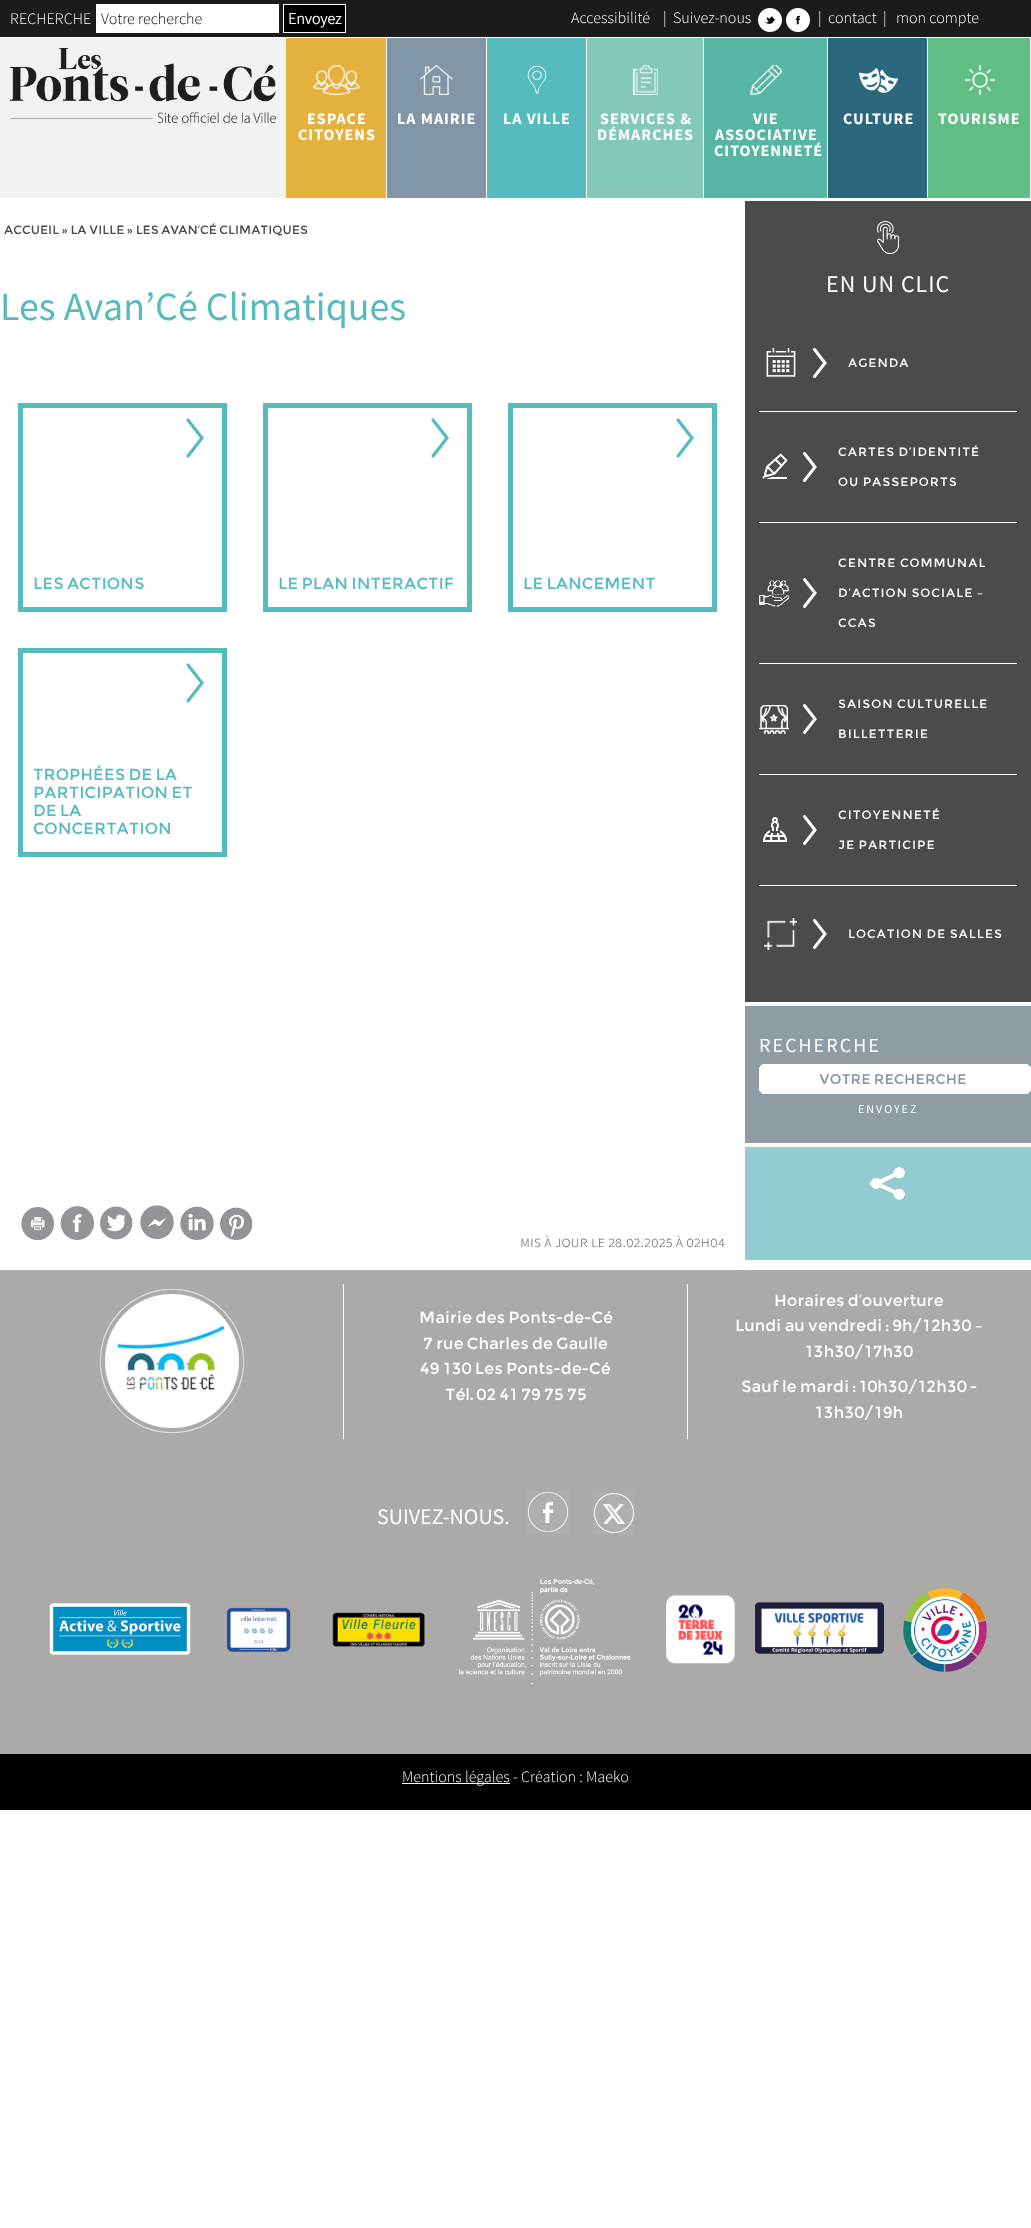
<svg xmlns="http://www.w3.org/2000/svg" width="1031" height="2228">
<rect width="100%" height="100%" fill="#fff"/>
<rect y="38" width="286" height="160" fill="#f2f2f2"/>
<rect width="1031" height="37" fill="#1b1b1b"/>
<text x="10" y="24" style="font-family:Source Sans Pro;font-size:16px;font-weight:300;fill:#fff">RECHERCHE</text>
<rect x="96" y="4" width="183" height="29" fill="#fff"/>
<text x="101" y="24" style="font-family:Source Sans Pro;font-size:16px;font-weight:300;fill:#000">Votre recherche</text>
<rect x="283.5" y="4.5" width="62" height="28" fill="#000" stroke="#fff"/>
<text x="288" y="24" style="font-family:Source Sans Pro;font-size:16px;font-weight:bold;fill:#fff">Envoyez</text>
<text x="571" y="23" style="font-family:Source Sans Pro;font-size:16px;font-weight:300;fill:#fff">Accessibilité</text>
<text x="663" y="23" style="font-family:Source Sans Pro;font-size:16px;font-weight:300;fill:#fff">|</text>
<text x="673" y="23" style="font-family:Source Sans Pro;font-size:16px;font-weight:300;fill:#fff">Suivez-nous</text>
<image x="758" y="8" width="24" height="24" href="media/1.png"/>
<image x="786" y="8" width="24" height="24" href="media/2.png"/>
<text x="818" y="23" style="font-family:Source Sans Pro;font-size:16px;font-weight:300;fill:#fff">|</text>
<text x="828" y="23" style="font-family:Source Sans Pro;font-size:16px;font-weight:300;fill:#fff">contact</text>
<text x="883" y="23" style="font-family:Source Sans Pro;font-size:16px;font-weight:300;fill:#fff">|</text>
<text x="896" y="23" style="font-family:Source Sans Pro;font-size:16px;font-weight:300;fill:#fff">mon compte</text>
<image x="10" y="48" width="266" height="75" href="media/3.png"/>
<rect x="286" y="38" width="100" height="160" fill="#e4b13e"/>
<image x="313" y="65" width="47" height="30" href="media/4.png"/>
<text x="307" y="124" style="font-family:'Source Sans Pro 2';font-size:16px;font-weight:bold;letter-spacing:1px;fill:#fff">ESPACE</text>
<text x="298" y="140" style="font-family:'Source Sans Pro 2';font-size:16px;font-weight:bold;letter-spacing:1px;fill:#fff">CITOYENS</text>
<rect x="387" y="38" width="99" height="160" fill="#8095a6"/>
<image x="420" y="65" width="33" height="30" href="media/5.png"/>
<text x="397" y="124" style="font-family:'Source Sans Pro 2';font-size:16px;font-weight:bold;letter-spacing:1px;fill:#fff">LA MAIRIE</text>
<rect x="487" y="38" width="99" height="160" fill="#55bbbd"/>
<image x="527" y="65" width="20" height="29" href="media/6.png"/>
<text x="503" y="124" style="font-family:'Source Sans Pro 2';font-size:16px;font-weight:bold;letter-spacing:1px;fill:#fff">LA VILLE</text>
<rect x="587" y="38" width="116" height="160" fill="#84c9b7"/>
<image x="633" y="65" width="25" height="30" href="media/7.png"/>
<text x="600" y="124" style="font-family:'Source Sans Pro 2';font-size:16px;font-weight:bold;letter-spacing:1px;fill:#fff">SERVICES &amp;</text>
<text x="597" y="140" style="font-family:'Source Sans Pro 2';font-size:16px;font-weight:bold;letter-spacing:1px;fill:#fff">DÉMARCHES</text>
<rect x="704" y="38" width="123" height="160" fill="#57b5a3"/>
<image x="750" y="65" width="32" height="30" href="media/8.png"/>
<text x="753" y="124" style="font-family:'Source Sans Pro 2';font-size:16px;font-weight:bold;letter-spacing:1px;fill:#fff">VIE</text>
<text x="715" y="140" style="font-family:'Source Sans Pro 2';font-size:16px;font-weight:bold;letter-spacing:1px;fill:#fff">ASSOCIATIVE</text>
<text x="714" y="156" style="font-family:'Source Sans Pro 2';font-size:16px;font-weight:bold;letter-spacing:1px;fill:#fff">CITOYENNETÉ</text>
<rect x="828" y="38" width="99" height="160" fill="#2b687d"/>
<image x="859" y="68" width="39" height="25" href="media/9.png"/>
<text x="843" y="124" style="font-family:'Source Sans Pro 2';font-size:16px;font-weight:bold;letter-spacing:1px;fill:#fff">CULTURE</text>
<rect x="928" y="38" width="102" height="160" fill="#60bd84"/>
<image x="965" y="65" width="30" height="30" href="media/10.png"/>
<text x="938" y="124" style="font-family:'Source Sans Pro 2';font-size:16px;font-weight:bold;letter-spacing:1px;fill:#fff">TOURISME</text>
<text x="4" y="234" style="font-family:Montserrat;font-size:12px;fill:#4b4b4b">ACCUEIL » LA VILLE » LES AVAN’CÉ CLIMATIQUES</text>
<text x="0" y="320" style="font-family:Source Sans Pro;font-size:40px;fill:#55bbbd">Les Avan’Cé Climatiques</text>
<rect x="20.5" y="405.5" width="204" height="204" fill="none" stroke="#55bbbd" stroke-width="5"/>
<path d="M188 420l14 18l-14 18" fill="none" stroke="#55bbbd" stroke-width="3.2" stroke-linecap="round"/>
<text x="33" y="589" style="font-family:Montserrat;font-size:16px;fill:#55bbbd">LES ACTIONS</text>
<rect x="265.5" y="405.5" width="204" height="204" fill="none" stroke="#55bbbd" stroke-width="5"/>
<path d="M433 420l14 18l-14 18" fill="none" stroke="#55bbbd" stroke-width="3.2" stroke-linecap="round"/>
<text x="278" y="589" style="font-family:Montserrat;font-size:16px;fill:#55bbbd">LE PLAN INTERACTIF</text>
<rect x="510.5" y="405.5" width="204" height="204" fill="none" stroke="#55bbbd" stroke-width="5"/>
<path d="M678 420l14 18l-14 18" fill="none" stroke="#55bbbd" stroke-width="3.2" stroke-linecap="round"/>
<text x="523" y="589" style="font-family:Montserrat;font-size:16px;fill:#55bbbd">LE LANCEMENT</text>
<rect x="20.5" y="650.5" width="204" height="204" fill="none" stroke="#55bbbd" stroke-width="5"/>
<path d="M188 665l14 18l-14 18" fill="none" stroke="#55bbbd" stroke-width="3.2" stroke-linecap="round"/>
<text x="33" y="780" style="font-family:Montserrat;font-size:16px;fill:#55bbbd">TROPHÉES DE LA</text>
<text x="33" y="798" style="font-family:Montserrat;font-size:16px;fill:#55bbbd">PARTICIPATION ET</text>
<text x="33" y="816" style="font-family:Montserrat;font-size:16px;fill:#55bbbd">DE LA</text>
<text x="33" y="834" style="font-family:Montserrat;font-size:16px;fill:#55bbbd">CONCERTATION</text>
<image x="21" y="1207" width="33" height="33" href="media/11.png"/>
<image x="60" y="1206" width="34" height="34" href="media/12.png"/>
<image x="100" y="1206" width="33" height="34" href="media/13.png"/>
<image x="140" y="1205" width="34" height="35" href="media/14.png"/>
<image x="180" y="1206" width="34" height="34" href="media/15.png"/>
<image x="220" y="1207" width="33" height="33" href="media/16.png"/>
<text x="520" y="1247" style="font-family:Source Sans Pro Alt;font-size:16px;font-weight:300;fill:#666">mis à jour le 28.02.2025 à 02h04</text>
<rect x="745" y="1147" width="286" height="113" fill="#91ccd1"/>
<rect x="745" y="201" width="286" height="801" fill="#4b4b4b"/>
<image x="877" y="221" width="22" height="33" href="media/17.png"/>
<text x="826" y="292" style="font-family:Source Sans Pro;font-size:24px;letter-spacing:1px;fill:#fff">EN UN CLIC</text>
<rect x="759" y="411" width="258" height="1" fill="#fff"/>
<image x="766" y="347" width="30" height="30" href="media/18.png"/>
<path d="M814.5 349.5l10.5 13.5l-10.5 13.5" fill="none" stroke="#fff" stroke-width="3" stroke-linecap="round"/>
<text x="848" y="367" style="font-family:Montserrat;font-size:12px;letter-spacing:1px;fill:#fff">AGENDA</text>
<rect x="759" y="522" width="258" height="1" fill="#fff"/>
<image x="762" y="453" width="26" height="26" href="media/19.png"/>
<path d="M804.5 453.5l10.5 13.5l-10.5 13.5" fill="none" stroke="#fff" stroke-width="3" stroke-linecap="round"/>
<text x="838" y="456" style="font-family:Montserrat;font-size:12px;letter-spacing:1px;fill:#fff">CARTES D’IDENTITÉ</text>
<text x="838" y="486" style="font-family:Montserrat;font-size:12px;letter-spacing:1px;fill:#fff">OU PASSEPORTS</text>
<rect x="759" y="663" width="258" height="1" fill="#fff"/>
<image x="759" y="580" width="30" height="27" href="media/20.png"/>
<path d="M804.5 579.5l10.5 13.5l-10.5 13.5" fill="none" stroke="#fff" stroke-width="3" stroke-linecap="round"/>
<text x="838" y="567" style="font-family:Montserrat;font-size:12px;letter-spacing:1px;fill:#fff">CENTRE COMMUNAL</text>
<text x="838" y="597" style="font-family:Montserrat;font-size:12px;letter-spacing:1px;fill:#fff">D’ACTION SOCIALE –</text>
<text x="838" y="627" style="font-family:Montserrat;font-size:12px;letter-spacing:1px;fill:#fff">CCAS</text>
<rect x="759" y="774" width="258" height="1" fill="#fff"/>
<image x="759" y="705" width="30" height="29" href="media/21.png"/>
<path d="M804.5 705.5l10.5 13.5l-10.5 13.5" fill="none" stroke="#fff" stroke-width="3" stroke-linecap="round"/>
<text x="838" y="708" style="font-family:Montserrat;font-size:12px;letter-spacing:1px;fill:#fff">SAISON CULTURELLE</text>
<text x="838" y="738" style="font-family:Montserrat;font-size:12px;letter-spacing:1px;fill:#fff">BILLETTERIE</text>
<rect x="759" y="885" width="258" height="1" fill="#fff"/>
<image x="763" y="817" width="24" height="25" href="media/22.png"/>
<path d="M804.5 816.5l10.5 13.5l-10.5 13.5" fill="none" stroke="#fff" stroke-width="3" stroke-linecap="round"/>
<text x="838" y="819" style="font-family:Montserrat;font-size:12px;letter-spacing:1px;fill:#fff">CITOYENNETÉ</text>
<text x="838" y="849" style="font-family:Montserrat;font-size:12px;letter-spacing:1px;fill:#fff">JE PARTICIPE</text>
<image x="764" y="918" width="33" height="32" href="media/23.png"/>
<path d="M814.5 920.5l10.5 13.5l-10.5 13.5" fill="none" stroke="#fff" stroke-width="3" stroke-linecap="round"/>
<text x="848" y="938" style="font-family:Montserrat;font-size:12px;letter-spacing:1px;fill:#fff">LOCATION DE SALLES</text>
<rect x="745" y="1006" width="286" height="137" fill="#8f9ca4"/>
<text x="759" y="1052" style="font-family:Source Sans Pro;font-size:20px;letter-spacing:2px;fill:#fff">RECHERCHE</text>
<rect x="759.5" y="1064.5" width="271" height="29" rx="4.5" fill="#fff" stroke="#fff"/>
<text x="819" y="1084" style="font-family:Montserrat;font-size:14px;fill:#8095a6">VOTRE RECHERCHE</text>
<text x="858" y="1113" style="font-family:Source Sans Pro;font-size:12px;letter-spacing:2px;fill:#fff">ENVOYEZ</text>
<image x="870" y="1167" width="35" height="33" href="media/24.png"/>
<rect y="1270" width="1031" height="484" fill="#abaaa9"/>
<image x="100" y="1289" width="144" height="144" href="media/25.png"/>
<rect x="343" y="1284" width="1" height="155" fill="#fff"/>
<text x="419" y="1323" style="font-family:Montserrat;font-size:16px;fill:#fff">Mairie des Ponts-de-Cé</text>
<text x="423" y="1349" style="font-family:Montserrat;font-size:16px;fill:#fff">7 rue Charles de Gaulle</text>
<text x="420" y="1374" style="font-family:Montserrat;font-size:16px;fill:#fff">49 130 Les Ponts-de-Cé</text>
<text x="445" y="1400" style="font-family:Montserrat;font-size:16px;fill:#fff">Tél. 02 41 79 75 75</text>
<rect x="687" y="1284" width="1" height="155" fill="#fff"/>
<text x="774" y="1306" style="font-family:Montserrat;font-size:16px;fill:#fff">Horaires d’ouverture</text>
<text x="735" y="1331" style="font-family:Montserrat;font-size:16px;fill:#fff">Lundi au vendredi : 9h/12h30 –</text>
<text x="805" y="1357" style="font-family:Montserrat;font-size:16px;fill:#fff">13h30/17h30</text>
<text x="741" y="1392" style="font-family:Montserrat;font-size:16px;fill:#fff">Sauf le mardi : 10h30/12h30 -</text>
<text x="815" y="1418" style="font-family:Montserrat;font-size:16px;fill:#fff">13h30/19h</text>
<text x="377" y="1524" style="font-family:Source Sans Pro;font-size:22px;fill:#fff">SUIVEZ-NOUS.</text>
<image x="526" y="1491" width="44" height="43" href="media/26.png"/>
<image x="593" y="1493" width="41" height="41" href="media/27.png"/>
<image x="49" y="1603" width="142" height="52" href="media/28.png"/>
<image x="226" y="1607" width="65" height="45" href="media/29.png"/>
<image x="332" y="1612" width="93" height="35" href="media/30.png"/>
<image x="459" y="1578" width="172" height="107" href="media/31.png"/>
<image x="666" y="1594" width="69" height="70" href="media/32.png"/>
<image x="755" y="1601" width="129" height="53" href="media/33.png"/>
<image x="903" y="1588" width="84" height="84" href="media/34.png"/>
<rect y="1754" width="1031" height="56" fill="#000"/>
<rect x="402" y="1783" width="108" height="1" fill="#fff"/>
<text x="402" y="1782" style="font-family:Source Sans Pro;font-size:16px;font-weight:300;fill:#fff">Mentions légales - Création : Maeko</text>
</svg>
